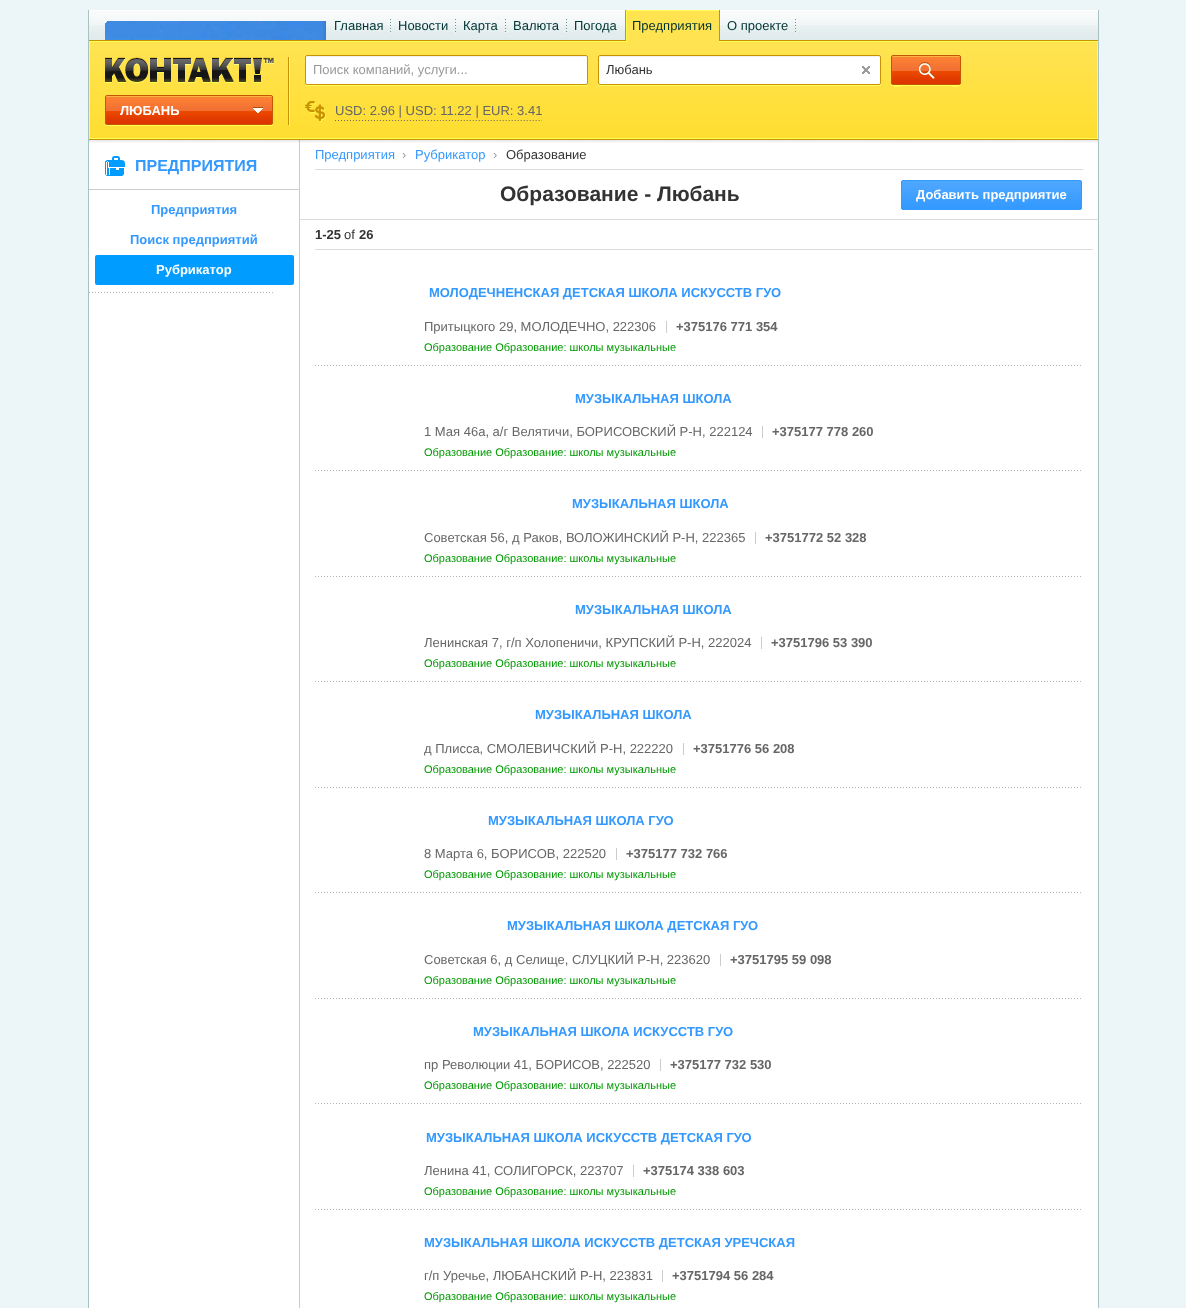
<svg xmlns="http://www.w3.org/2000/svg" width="1186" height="1308">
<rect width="100%" height="100%" fill="#ecf5f7"/>
<rect x="89" y="140" width="1009" height="1168" fill="#fff"/>
<rect x="1098" y="10" width="1" height="1298" fill="#a9c3c2"/>
<rect x="88" y="10" width="1" height="1298" fill="#a9c3c2"/>
<image x="89" y="10" width="1009" height="30" href="media/1.png"/>
<image x="105" y="21" width="221" height="19" href="media/2.png"/>
<image x="390" y="19" width="1" height="14" href="media/3.png"/>
<text x="334" y="30" style="font-family:Liberation Sans;font-size:13px;fill:#033">Главная</text>
<image x="455" y="19" width="1" height="14" href="media/3.png"/>
<text x="398" y="30" style="font-family:Liberation Sans;font-size:13px;fill:#033">Новости</text>
<image x="505" y="19" width="1" height="14" href="media/4.png"/>
<text x="463" y="30" style="font-family:Liberation Sans;font-size:13px;fill:#033">Карта</text>
<image x="566" y="19" width="1" height="14" href="media/4.png"/>
<text x="513" y="30" style="font-family:Liberation Sans;font-size:13px;fill:#033">Валюта</text>
<text x="574" y="30" style="font-family:Liberation Sans;font-size:13px;fill:#033">Погода</text>
<image x="89" y="40" width="1009" height="2" href="media/8.png"/>
<image x="624" y="10" width="95" height="32" href="media/5.png"/>
<image x="719" y="10" width="1" height="32" href="media/6.png"/>
<text x="632" y="30" style="font-family:Liberation Sans;font-size:13px;fill:#033">Предприятия</text>
<image x="795" y="19" width="1" height="14" href="media/3.png"/>
<text x="727" y="30" style="font-family:Liberation Sans;font-size:13px;fill:#033">О проекте</text>
<rect x="299" y="140" width="1" height="1168" fill="#ccc"/>
<image x="89" y="42" width="1009" height="101" href="media/7.png"/>
<rect x="1097" y="42" width="1" height="97" fill="#ffff52"/>
<rect x="89" y="138" width="1009" height="1" fill="#ffff52"/>
<rect x="89" y="42" width="1" height="97" fill="#ffff52"/>
<path d="M305 83c0 1 0 3 2 3h279c2 0 2-2 2-3c0 1-1 2-2 2h-279c-1 0-2-1-2-2z" fill="#ffff54"/>
<rect x="305" y="55" width="283" height="30" rx="2" fill="#fff"/>
<image x="305" y="56" width="283" height="1" href="media/9.png"/>
<rect x="305.5" y="55.5" width="282" height="29" rx="1.5" fill="none" stroke="#c99200"/>
<text x="313" y="74" style="font-family:Liberation Sans;font-size:13px;fill:#999">Поиск компаний, услуги...</text>
<path d="M598 83c0 1 0 3 2 3h279c2 0 2-2 2-3c0 1-1 2-2 2h-279c-1 0-2-1-2-2z" fill="#ffff54"/>
<rect x="598" y="55" width="283" height="30" rx="2" fill="#fff"/>
<image x="598" y="56" width="283" height="1" href="media/9.png"/>
<rect x="598.5" y="55.5" width="282" height="29" rx="1.5" fill="none" stroke="#c99200"/>
<text x="606" y="74" style="font-family:Liberation Sans;font-size:13px;fill:#333">Любань</text>
<image x="862" y="66" width="8" height="8" href="media/10.png"/>
<path d="M891 83c0 6 9 3 13 3h44c4 0 13 3 13-3c0 1-1 2-2 2h-67z" fill="#ffff54"/>
<image x="891" y="56" width="70" height="28" href="media/11.png"/>
<rect x="891.5" y="55.5" width="69" height="29" rx="1.5" fill="none" stroke="#c45600"/>
<image x="919" y="62" width="16" height="17" href="media/12.png"/>
<image x="288" y="57" width="2" height="68" href="media/13.png"/>
<image x="105" y="57" width="169" height="26" href="media/14.png"/>
<path d="M105 123c0 1 0 3 2 3h164c2 0 2-2 2-3c0 1-1 2-2 2h-164c-1 0-2-1-2-2z" fill="#ffff52"/>
<image x="105" y="96" width="168" height="28" href="media/15.png"/>
<rect x="105.5" y="95.5" width="167" height="29" rx="1.5" fill="none" stroke="#c55700"/>
<text x="120" y="115" style="font-family:Liberation Sans;font-size:13px;font-weight:bold;fill:#fff">ЛЮБАНЬ</text>
<image x="253" y="107" width="10" height="6" href="media/16.png"/>
<image x="305" y="101" width="237" height="21" href="media/17.png"/>
<text x="335" y="115" style="font-family:Liberation Sans;font-size:13px;fill:#666">USD: 2.96 | USD: 11.22 | EUR: 3.41</text>
<rect x="89" y="189" width="210" height="1" fill="#ccc"/>
<image x="105" y="156" width="20" height="20" href="media/18.png"/>
<text x="135" y="171" style="font-family:Liberation Sans;font-size:16px;font-weight:bold;fill:#39f">ПРЕДПРИЯТИЯ</text>
<text x="151" y="214" style="font-family:Liberation Sans;font-size:13px;font-weight:bold;fill:#39f">Предприятия</text>
<text x="130" y="244" style="font-family:Liberation Sans;font-size:13px;font-weight:bold;fill:#39f">Поиск предприятий</text>
<rect x="95" y="255" width="199" height="30" rx="2" fill="#009cff"/>
<text x="156" y="274" style="font-family:Liberation Sans;font-size:13px;font-weight:bold;fill:#fff">Рубрикатор</text>
<image x="89" y="292" width="184" height="1" href="media/19.png"/>
<rect x="315" y="169" width="768" height="1" fill="#dbdbdb"/>
<text x="315" y="159" style="font-family:Liberation Sans;font-size:13px;fill:#39f">Предприятия</text>
<text x="402" y="159" style="font-family:Liberation Sans;font-size:13px;fill:#999">›</text>
<text x="415" y="159" style="font-family:Liberation Sans;font-size:13px;fill:#39f">Рубрикатор</text>
<text x="493" y="159" style="font-family:Liberation Sans;font-size:13px;fill:#999">›</text>
<text x="506" y="159" style="font-family:Liberation Sans;font-size:13px;fill:#333">Образование</text>
<rect x="300" y="219" width="798" height="1" fill="#dbdbdb"/>
<text x="500" y="201" style="font-family:Liberation Sans;font-size:21px;font-weight:bold;fill:#333">Образование - Любань</text>
<image x="901" y="181" width="181" height="28" href="media/20.png"/>
<rect x="901.5" y="180.5" width="180" height="29" rx="1.5" fill="none" stroke="#39f"/>
<text x="916" y="199" style="font-family:Liberation Sans;font-size:13px;font-weight:bold;fill:#fff">Добавить предприятие</text>
<rect x="315" y="249" width="778" height="1" fill="#dbdbdb"/>
<text x="315" y="239" style="font-family:Liberation Sans;font-size:13px;font-weight:bold;fill:#333">1-25</text>
<text x="344" y="239" style="font-family:Liberation Sans;font-size:13px;fill:#333">of</text>
<text x="359" y="239" style="font-family:Liberation Sans;font-size:13px;font-weight:bold;fill:#333">26</text>
<image x="315" y="365" width="766" height="1" href="media/21.png"/>
<text x="429" y="297" style="font-family:Liberation Sans;font-size:13px;font-weight:bold;fill:#39f">МОЛОДЕЧНЕНСКАЯ ДЕТСКАЯ ШКОЛА ИСКУССТВ ГУО</text>
<text x="424" y="331" style="font-family:Liberation Sans;font-size:13px;fill:#666">Притыцкого 29, МОЛОДЕЧНО, 222306</text>
<rect x="666" y="321" width="1" height="12" fill="#ccc"/>
<text x="676" y="331" style="font-family:Liberation Sans;font-size:13px;font-weight:bold;fill:#666">+375176 771 354</text>
<text x="424" y="351" style="font-family:Liberation Sans;font-size:11px;fill:#090">Образование Образование: школы музыкальные</text>
<image x="315" y="470" width="766" height="1" href="media/21.png"/>
<text x="575" y="403" style="font-family:Liberation Sans;font-size:13px;font-weight:bold;fill:#39f">МУЗЫКАЛЬНАЯ ШКОЛА</text>
<text x="424" y="436" style="font-family:Liberation Sans;font-size:13px;fill:#666">1 Мая 46а, а/г Велятичи, БОРИСОВСКИЙ Р-Н, 222124</text>
<rect x="762" y="426" width="1" height="12" fill="#ccc"/>
<text x="772" y="436" style="font-family:Liberation Sans;font-size:13px;font-weight:bold;fill:#666">+375177 778 260</text>
<text x="424" y="456" style="font-family:Liberation Sans;font-size:11px;fill:#090">Образование Образование: школы музыкальные</text>
<image x="315" y="576" width="766" height="1" href="media/21.png"/>
<text x="572" y="508" style="font-family:Liberation Sans;font-size:13px;font-weight:bold;fill:#39f">МУЗЫКАЛЬНАЯ ШКОЛА</text>
<text x="424" y="542" style="font-family:Liberation Sans;font-size:13px;fill:#666">Советская 56, д Раков, ВОЛОЖИНСКИЙ Р-Н, 222365</text>
<rect x="755" y="532" width="1" height="12" fill="#ccc"/>
<text x="765" y="542" style="font-family:Liberation Sans;font-size:13px;font-weight:bold;fill:#666">+3751772 52 328</text>
<text x="424" y="562" style="font-family:Liberation Sans;font-size:11px;fill:#090">Образование Образование: школы музыкальные</text>
<image x="315" y="681" width="766" height="1" href="media/21.png"/>
<text x="575" y="614" style="font-family:Liberation Sans;font-size:13px;font-weight:bold;fill:#39f">МУЗЫКАЛЬНАЯ ШКОЛА</text>
<text x="424" y="647" style="font-family:Liberation Sans;font-size:13px;fill:#666">Ленинская 7, г/п Холопеничи, КРУПСКИЙ Р-Н, 222024</text>
<rect x="761" y="637" width="1" height="12" fill="#ccc"/>
<text x="771" y="647" style="font-family:Liberation Sans;font-size:13px;font-weight:bold;fill:#666">+3751796 53 390</text>
<text x="424" y="667" style="font-family:Liberation Sans;font-size:11px;fill:#090">Образование Образование: школы музыкальные</text>
<image x="315" y="787" width="766" height="1" href="media/21.png"/>
<text x="535" y="719" style="font-family:Liberation Sans;font-size:13px;font-weight:bold;fill:#39f">МУЗЫКАЛЬНАЯ ШКОЛА</text>
<text x="424" y="753" style="font-family:Liberation Sans;font-size:13px;fill:#666">д Плисса, СМОЛЕВИЧСКИЙ Р-Н, 222220</text>
<rect x="683" y="743" width="1" height="12" fill="#ccc"/>
<text x="693" y="753" style="font-family:Liberation Sans;font-size:13px;font-weight:bold;fill:#666">+3751776 56 208</text>
<text x="424" y="773" style="font-family:Liberation Sans;font-size:11px;fill:#090">Образование Образование: школы музыкальные</text>
<image x="315" y="892" width="766" height="1" href="media/21.png"/>
<text x="488" y="825" style="font-family:Liberation Sans;font-size:13px;font-weight:bold;fill:#39f">МУЗЫКАЛЬНАЯ ШКОЛА ГУО</text>
<text x="424" y="858" style="font-family:Liberation Sans;font-size:13px;fill:#666">8 Марта 6, БОРИСОВ, 222520</text>
<rect x="616" y="848" width="1" height="12" fill="#ccc"/>
<text x="626" y="858" style="font-family:Liberation Sans;font-size:13px;font-weight:bold;fill:#666">+375177 732 766</text>
<text x="424" y="878" style="font-family:Liberation Sans;font-size:11px;fill:#090">Образование Образование: школы музыкальные</text>
<image x="315" y="998" width="766" height="1" href="media/21.png"/>
<text x="507" y="930" style="font-family:Liberation Sans;font-size:13px;font-weight:bold;fill:#39f">МУЗЫКАЛЬНАЯ ШКОЛА ДЕТСКАЯ ГУО</text>
<text x="424" y="964" style="font-family:Liberation Sans;font-size:13px;fill:#666">Советская 6, д Селище, СЛУЦКИЙ Р-Н, 223620</text>
<rect x="720" y="954" width="1" height="12" fill="#ccc"/>
<text x="730" y="964" style="font-family:Liberation Sans;font-size:13px;font-weight:bold;fill:#666">+3751795 59 098</text>
<text x="424" y="984" style="font-family:Liberation Sans;font-size:11px;fill:#090">Образование Образование: школы музыкальные</text>
<image x="315" y="1103" width="766" height="1" href="media/21.png"/>
<text x="473" y="1036" style="font-family:Liberation Sans;font-size:13px;font-weight:bold;fill:#39f">МУЗЫКАЛЬНАЯ ШКОЛА ИСКУССТВ ГУО</text>
<text x="424" y="1069" style="font-family:Liberation Sans;font-size:13px;fill:#666">пр Революции 41, БОРИСОВ, 222520</text>
<rect x="660" y="1059" width="1" height="12" fill="#ccc"/>
<text x="670" y="1069" style="font-family:Liberation Sans;font-size:13px;font-weight:bold;fill:#666">+375177 732 530</text>
<text x="424" y="1089" style="font-family:Liberation Sans;font-size:11px;fill:#090">Образование Образование: школы музыкальные</text>
<image x="315" y="1209" width="766" height="1" href="media/21.png"/>
<text x="426" y="1142" style="font-family:Liberation Sans;font-size:13px;font-weight:bold;fill:#39f">МУЗЫКАЛЬНАЯ ШКОЛА ИСКУССТВ ДЕТСКАЯ ГУО</text>
<text x="424" y="1175" style="font-family:Liberation Sans;font-size:13px;fill:#666">Ленина 41, СОЛИГОРСК, 223707</text>
<rect x="633" y="1165" width="1" height="12" fill="#ccc"/>
<text x="643" y="1175" style="font-family:Liberation Sans;font-size:13px;font-weight:bold;fill:#666">+375174 338 603</text>
<text x="424" y="1195" style="font-family:Liberation Sans;font-size:11px;fill:#090">Образование Образование: школы музыкальные</text>
<text x="424" y="1247" style="font-family:Liberation Sans;font-size:13px;font-weight:bold;fill:#39f">МУЗЫКАЛЬНАЯ ШКОЛА ИСКУССТВ ДЕТСКАЯ УРЕЧСКАЯ</text>
<text x="424" y="1280" style="font-family:Liberation Sans;font-size:13px;fill:#666">г/п Уречье, ЛЮБАНСКИЙ Р-Н, 223831</text>
<rect x="662" y="1270" width="1" height="12" fill="#ccc"/>
<text x="672" y="1280" style="font-family:Liberation Sans;font-size:13px;font-weight:bold;fill:#666">+3751794 56 284</text>
<text x="424" y="1300" style="font-family:Liberation Sans;font-size:11px;fill:#090">Образование Образование: школы музыкальные</text>
</svg>
